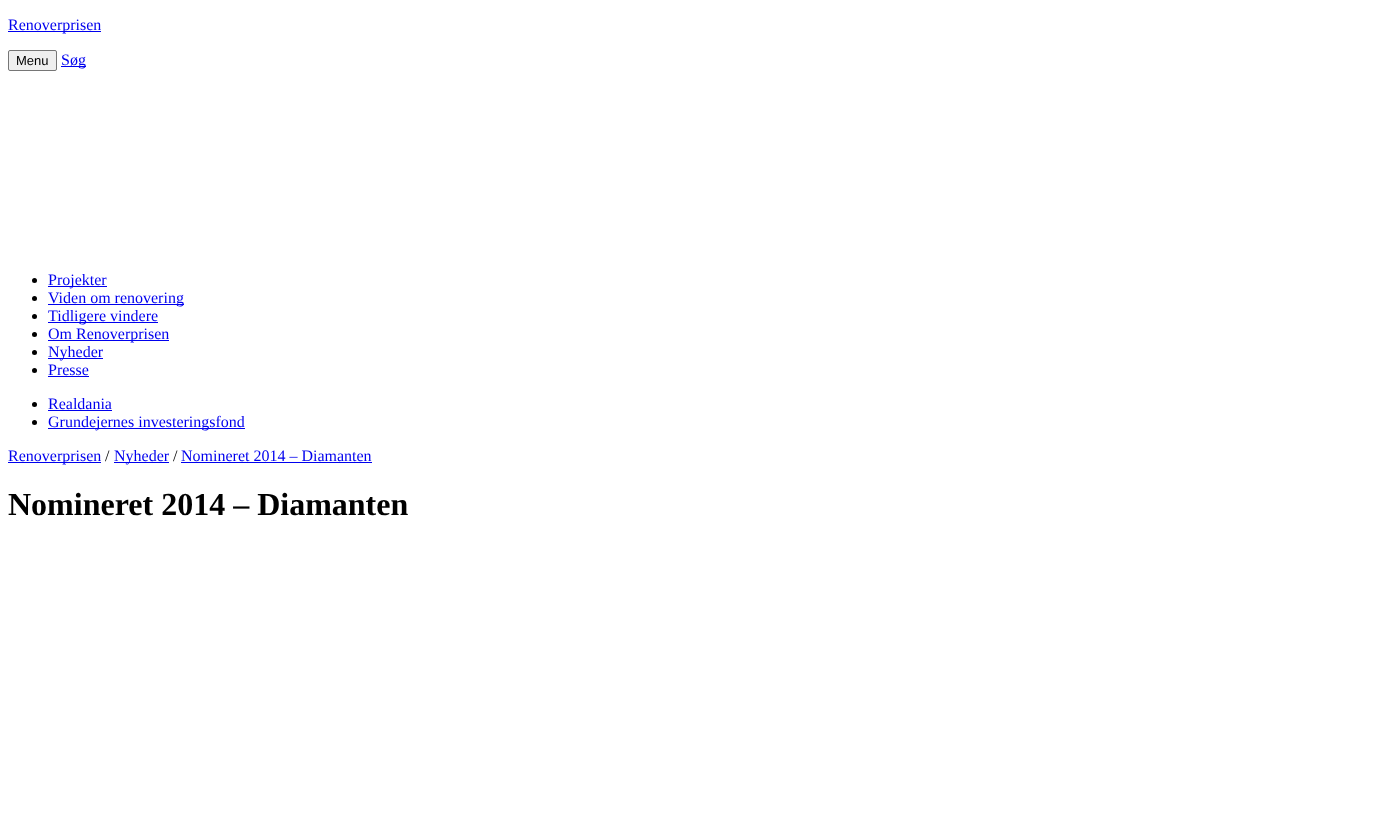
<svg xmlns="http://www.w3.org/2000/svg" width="1390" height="821">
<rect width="100%" height="100%" fill="#fff"/>
<rect x="8" y="31" width="93" height="1" fill="#00e"/>
<text x="8" y="30" style="font-family:Liberation Serif;font-size:16px;fill:#00e">Renoverprisen</text>
<rect x="8.5" y="50.5" width="48" height="20" rx="1.5" fill="#efefef" stroke="#767676"/>
<text x="16" y="65" style="font-family:Liberation Sans;font-size:13px;fill:#000">Menu</text>
<rect x="61" y="66" width="25" height="1" fill="#00e"/>
<text x="61" y="65" style="font-family:Liberation Serif;font-size:16px;fill:#00e">Søg</text>
<circle cx="34.5" cy="280.5" r="2.5" fill="#000"/>
<rect x="48" y="286" width="59" height="1" fill="#00e"/>
<text x="48" y="285" style="font-family:Liberation Serif;font-size:16px;fill:#00e">Projekter</text>
<circle cx="34.5" cy="298.5" r="2.5" fill="#000"/>
<rect x="48" y="304" width="136" height="1" fill="#00e"/>
<text x="48" y="303" style="font-family:Liberation Serif;font-size:16px;fill:#00e">Viden om renovering</text>
<circle cx="34.5" cy="316.5" r="2.5" fill="#000"/>
<rect x="48" y="322" width="110" height="1" fill="#00e"/>
<text x="48" y="321" style="font-family:Liberation Serif;font-size:16px;fill:#00e">Tidligere vindere</text>
<circle cx="34.5" cy="334.5" r="2.5" fill="#000"/>
<rect x="48" y="340" width="121" height="1" fill="#00e"/>
<text x="48" y="339" style="font-family:Liberation Serif;font-size:16px;fill:#00e">Om Renoverprisen</text>
<circle cx="34.5" cy="352.5" r="2.5" fill="#000"/>
<rect x="48" y="358" width="55" height="1" fill="#00e"/>
<text x="48" y="357" style="font-family:Liberation Serif;font-size:16px;fill:#00e">Nyheder</text>
<circle cx="34.5" cy="370.5" r="2.5" fill="#000"/>
<text x="48" y="375" style="font-family:Liberation Serif;font-size:16px;fill:#00e">Presse</text>
<rect x="48" y="376" width="41" height="1" fill="#00e"/>
<circle cx="34.5" cy="404.5" r="2.5" fill="#000"/>
<text x="48" y="409" style="font-family:Liberation Serif;font-size:16px;fill:#00e">Realdania</text>
<rect x="48" y="410" width="64" height="1" fill="#00e"/>
<circle cx="34.5" cy="422.5" r="2.5" fill="#000"/>
<rect x="48" y="428" width="197" height="1" fill="#00e"/>
<text x="48" y="427" style="font-family:Liberation Serif;font-size:16px;fill:#00e">Grundejernes investeringsfond</text>
<rect x="8" y="462" width="93" height="1" fill="#00e"/>
<text x="8" y="461" style="font-family:Liberation Serif;font-size:16px;fill:#00e">Renoverprisen</text>
<text x="105" y="461" style="font-family:Liberation Serif;font-size:16px;fill:#000">/</text>
<rect x="114" y="462" width="55" height="1" fill="#00e"/>
<text x="114" y="461" style="font-family:Liberation Serif;font-size:16px;fill:#00e">Nyheder</text>
<text x="173" y="461" style="font-family:Liberation Serif;font-size:16px;fill:#000">/</text>
<text x="181" y="461" style="font-family:Liberation Serif;font-size:16px;fill:#00e">Nomineret 2014 – Diamanten</text>
<rect x="181" y="462" width="191" height="1" fill="#00e"/>
<text x="8" y="515" style="font-family:Liberation Serif;font-size:32px;font-weight:bold;fill:#000">Nomineret 2014 – Diamanten</text>
</svg>
